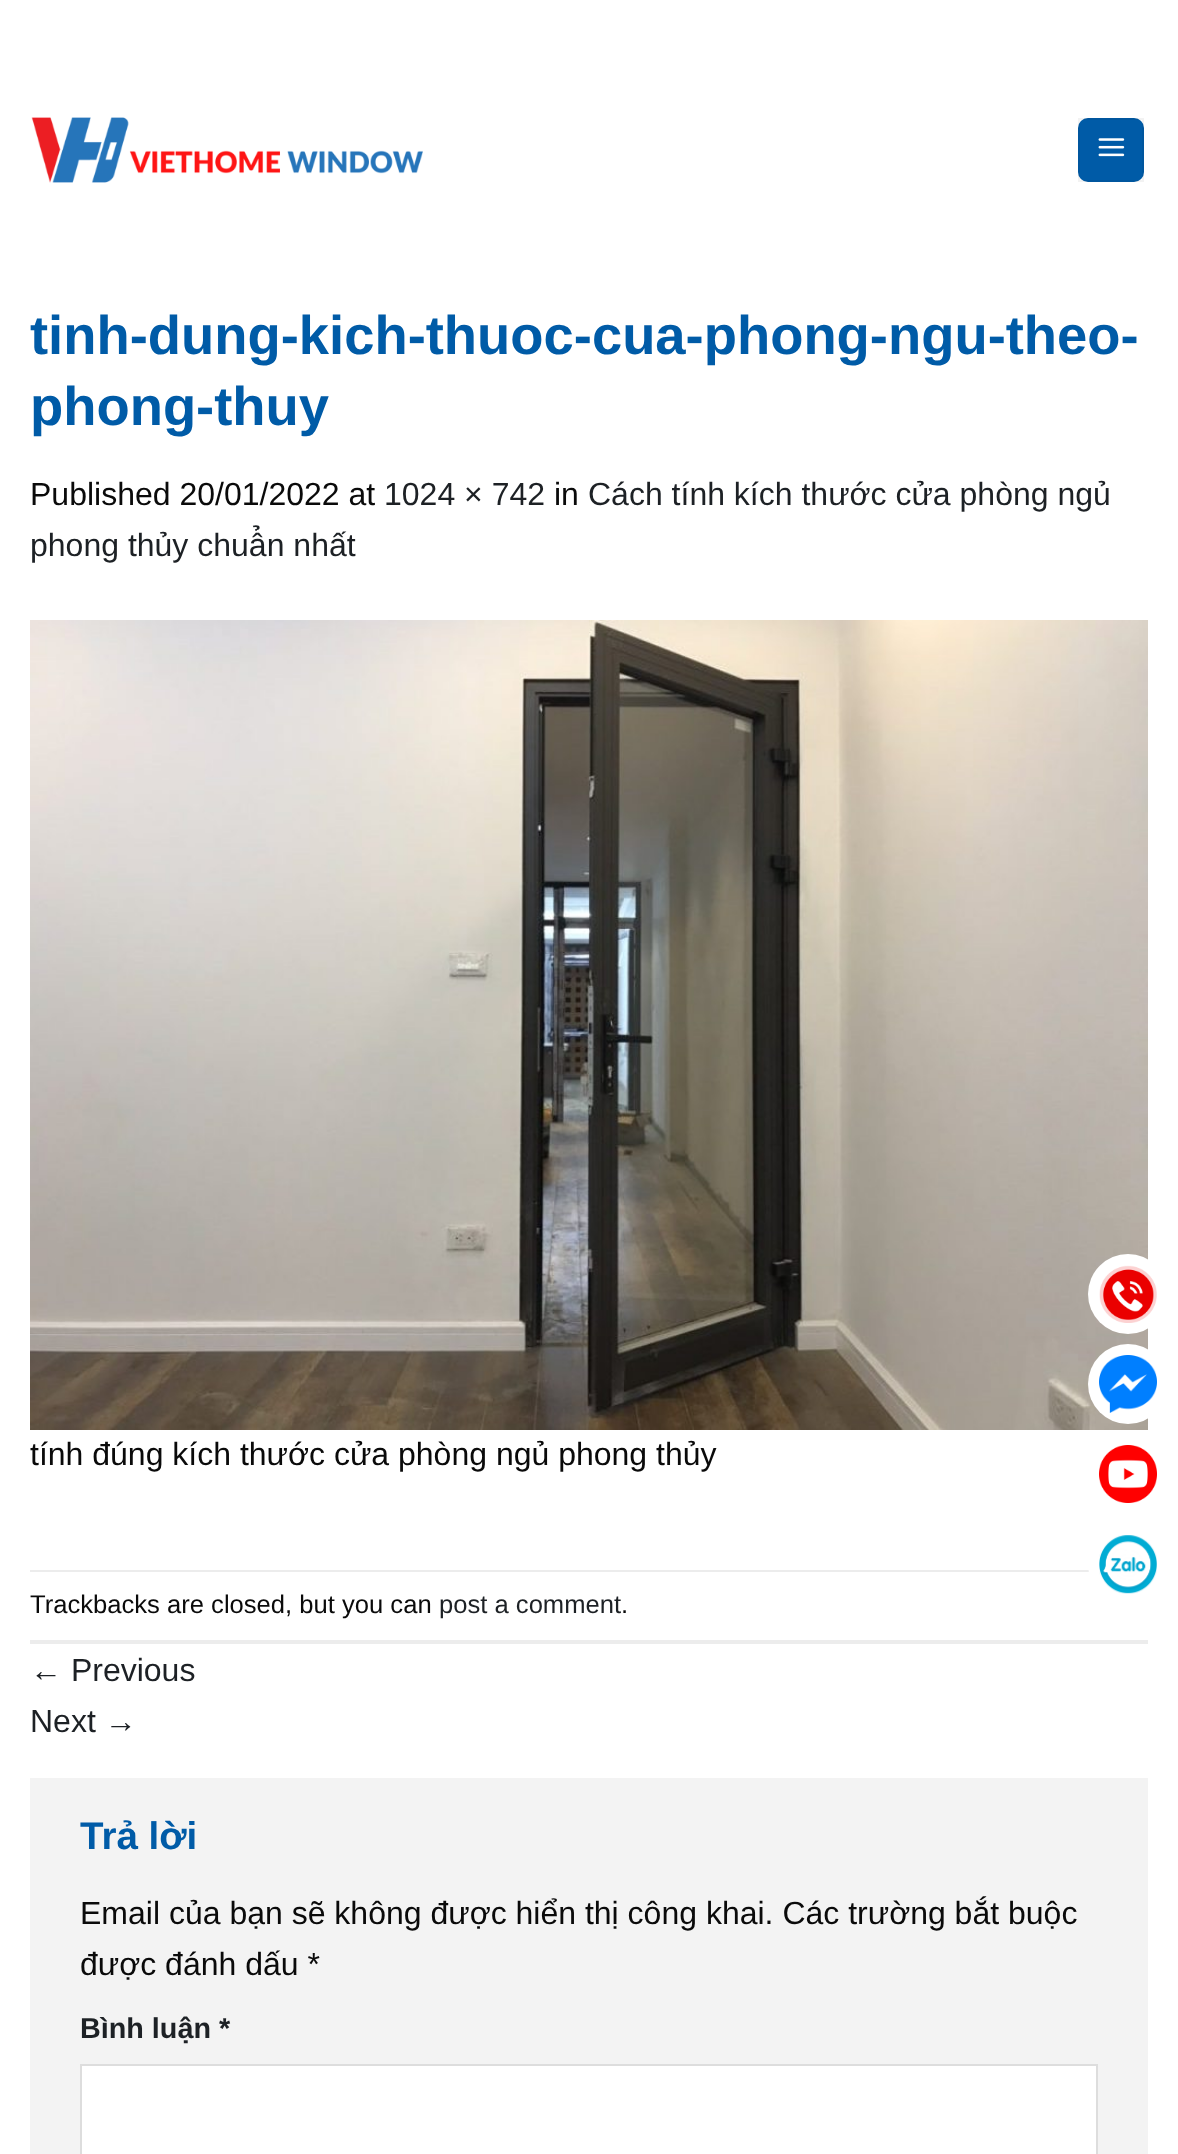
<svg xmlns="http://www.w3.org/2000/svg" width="1178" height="2154">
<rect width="100%" height="100%" fill="#fff"/>
<image x="31" y="117" width="392" height="66" href="media/1.png"/>
<rect x="1078" y="118" width="66" height="64" rx="10" fill="#005ba7"/>
<rect x="1079" y="119" width="64" height="62" fill="none" stroke="#0000000d" stroke-width="2"/>
<image x="1098" y="138" width="27" height="19" href="media/2.png"/>
<text x="30" y="354" style="font-family:Liberation Sans;font-size:54.4px;font-weight:bold;fill:#005ba7">tinh-dung-kich-thuoc-cua-phong-ngu-theo-</text>
<text x="30" y="425" style="font-family:Liberation Sans;font-size:54.4px;font-weight:bold;fill:#005ba7">phong-thuy</text>
<text x="30" y="505" style="font-family:Liberation Sans;font-size:32px;fill:#0a0a0a">Published 20/01/2022 at</text>
<text x="384" y="505" style="font-family:Liberation Sans;font-size:32px;fill:#1d2125">1024 × 742</text>
<text x="554" y="505" style="font-family:Liberation Sans;font-size:32px;fill:#0a0a0a">in</text>
<text x="588" y="505" style="font-family:Liberation Sans;font-size:32px;fill:#1d2125">Cách tính kích thước cửa phòng ngủ</text>
<text x="30" y="556" style="font-family:Liberation Sans;font-size:32px;fill:#1d2125">phong thủy chuẩn nhất</text>
<image x="30" y="620" width="1118" height="810" href="media/3.png"/>
<text x="30" y="1465" style="font-family:Liberation Sans;font-size:32px;fill:#0a0a0a">tính đúng kích thước cửa phòng ngủ phong thủy</text>
<rect x="30" y="1570" width="1059" height="2" fill="#ececec"/>
<rect x="30" y="1640" width="1118" height="4" fill="#ececec"/>
<text x="30" y="1613" style="font-family:Liberation Sans;font-size:25.6px;fill:#0a0a0a">Trackbacks are closed, but you can</text>
<text x="439" y="1613" style="font-family:Liberation Sans;font-size:25.6px;fill:#1d2125">post a comment</text>
<text x="621" y="1613" style="font-family:Liberation Sans;font-size:25.6px;fill:#0a0a0a">.</text>
<text x="30" y="1681" style="font-family:Liberation Sans;font-size:32px;fill:#1d2125">← Previous</text>
<text x="30" y="1732" style="font-family:Liberation Sans;font-size:32px;fill:#1d2125">Next →</text>
<rect x="30" y="1778" width="1118" height="376" fill="#f3f3f3"/>
<text x="80" y="1849" style="font-family:Liberation Sans;font-size:38.5px;font-weight:bold;fill:#005ba7">Trả lời</text>
<text x="80" y="1924" style="font-family:Liberation Sans;font-size:32px;fill:#0a0a0a">Email của bạn sẽ không được hiển thị công khai. Các trường bắt buộc</text>
<text x="80" y="1975" style="font-family:Liberation Sans;font-size:32px;fill:#0a0a0a">được đánh dấu *</text>
<text x="80" y="2038" style="font-family:Liberation Sans;font-size:28.75px;font-weight:bold;fill:#1d2125">Bình luận *</text>
<rect x="81" y="2065" width="1016" height="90" fill="#fff" stroke="#ddd" stroke-width="2"/>
<circle cx="1128" cy="1294" r="40" fill="#fff"/>
<image x="1099" y="1265" width="58" height="58" href="media/4.png"/>
<circle cx="1128" cy="1384" r="40" fill="#fff"/>
<image x="1099" y="1355" width="58" height="58" href="media/5.png"/>
<image x="1099" y="1445" width="58" height="58" href="media/6.png"/>
<circle cx="1128" cy="1564" r="40" fill="#fff"/>
<image x="1099" y="1535" width="58" height="59" href="media/7.png"/>
</svg>
